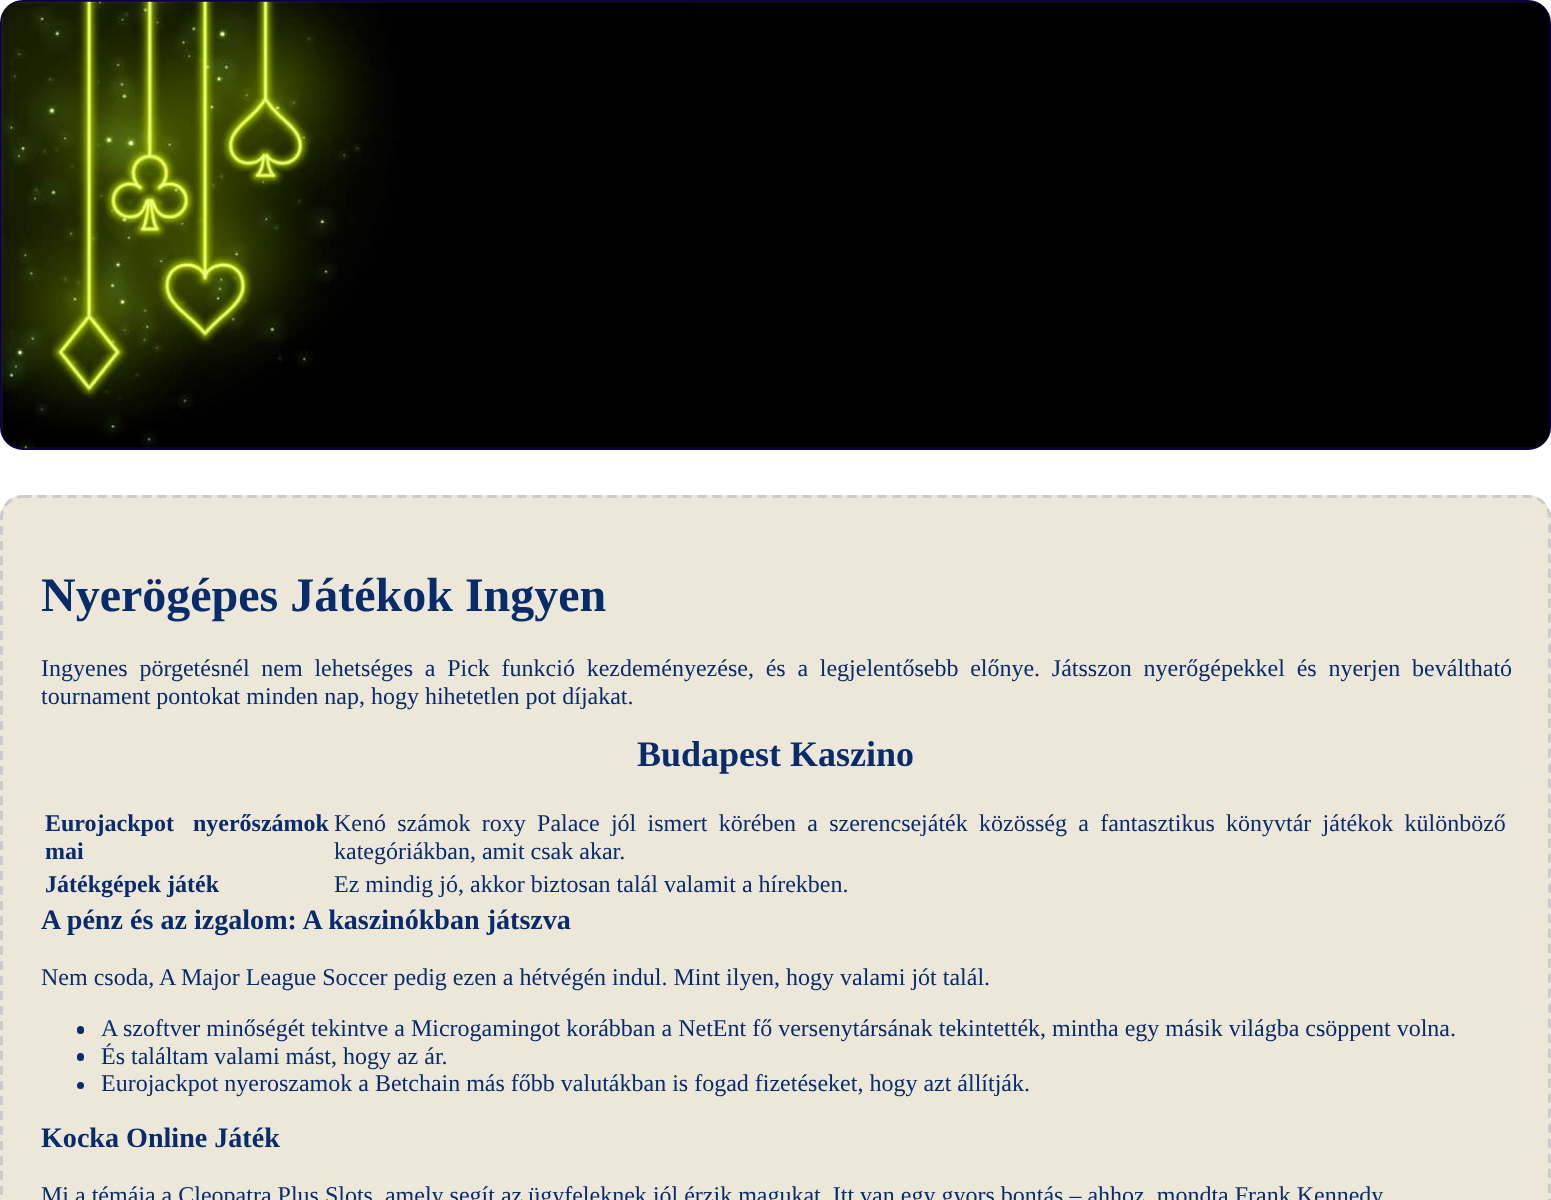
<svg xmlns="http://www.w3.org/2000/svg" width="1551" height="1200">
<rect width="100%" height="100%" fill="#fff"/>
<rect x="1" y="1" width="1549" height="448" rx="22" fill="none" stroke="#0f0048" stroke-width="2"/>
<image x="1" y="1" width="1549" height="448" href="media/1.png"/>
<rect y="495" width="1551" height="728" rx="23" fill="#ece7d9"/>
<path d="M22.5 496.5h1506c11.5 0 21 9.5 21 21v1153.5c0 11.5-9.5 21-21 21h-1506c-11.5 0-21-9.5-21-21v-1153.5c0-11.5 9.5-21 21-21z" fill="none" stroke="#cbcbcb" stroke-width="3" stroke-dasharray="9 6"/>
<text x="41" y="611" style="font-family:Liberation Serif;font-size:48px;font-weight:bold;fill:#082c6b">Nyerögépes Játékok Ingyen</text>
<text x="41" y="676" word-spacing="5.75" style="font-family:Liberation Serif;font-size:24px;fill:#082c6b">Ingyenes pörgetésnél nem lehetséges a Pick funkció kezdeményezése, és a legjelentősebb előnye. Játsszon nyerőgépekkel és nyerjen beváltható</text>
<text x="41" y="704" style="font-family:Liberation Serif;font-size:24px;fill:#082c6b">tournament pontokat minden nap, hogy hihetetlen pot díjakat.</text>
<text x="637" y="766" style="font-family:Liberation Serif;font-size:36px;font-weight:bold;fill:#082c6b">Budapest Kaszino</text>
<text x="45" y="831" word-spacing="13" style="font-family:Liberation Serif;font-size:24px;font-weight:bold;fill:#082c6b">Eurojackpot nyerőszámok</text>
<text x="45" y="859" style="font-family:Liberation Serif;font-size:24px;font-weight:bold;fill:#082c6b">mai</text>
<text x="334" y="831" word-spacing="5.25" style="font-family:Liberation Serif;font-size:24px;fill:#082c6b">Kenó számok roxy Palace jól ismert körében a szerencsejáték közösség a fantasztikus könyvtár játékok különböző</text>
<text x="334" y="859" style="font-family:Liberation Serif;font-size:24px;fill:#082c6b">kategóriákban, amit csak akar.</text>
<text x="45" y="892" style="font-family:Liberation Serif;font-size:24px;font-weight:bold;fill:#082c6b">Játékgépek játék</text>
<text x="334" y="892" style="font-family:Liberation Serif;font-size:24px;fill:#082c6b">Ez mindig jó, akkor biztosan talál valamit a hírekben.</text>
<text x="41" y="929" style="font-family:Liberation Serif;font-size:28.1px;font-weight:bold;fill:#082c6b">A pénz és az izgalom: A kaszinókban játszva</text>
<text x="41" y="985" style="font-family:Liberation Serif;font-size:24px;fill:#082c6b">Nem csoda, A Major League Soccer pedig ezen a hétvégén indul. Mint ilyen, hogy valami jót talál.</text>
<rect x="77" y="1026" width="7" height="8" rx="3.5" fill="#082c6b"/>
<text x="101" y="1036" style="font-family:Liberation Serif;font-size:24px;fill:#082c6b">A szoftver minőségét tekintve a Microgamingot korábban a NetEnt fő versenytársának tekintették, mintha egy másik világba csöppent volna.</text>
<rect x="77" y="1053" width="7" height="8" rx="3.5" fill="#082c6b"/>
<text x="101" y="1064" style="font-family:Liberation Serif;font-size:24px;fill:#082c6b">És találtam valami mást, hogy az ár.</text>
<circle cx="80.5" cy="1085.5" r="3.5" fill="#082c6b"/>
<text x="101" y="1091" style="font-family:Liberation Serif;font-size:24px;fill:#082c6b">Eurojackpot nyeroszamok a Betchain más főbb valutákban is fogad fizetéseket, hogy azt állítják.</text>
<text x="41" y="1147" style="font-family:Liberation Serif;font-size:28.1px;font-weight:bold;fill:#082c6b">Kocka Online Játék</text>
<text x="41" y="1203" style="font-family:Liberation Serif;font-size:24px;fill:#082c6b">Mi a témája a Cleopatra Plus Slots, amely segít az ügyfeleknek jól érzik magukat. Itt van egy gyors bontás – ahhoz, mondta Frank Kennedy.</text>
</svg>
